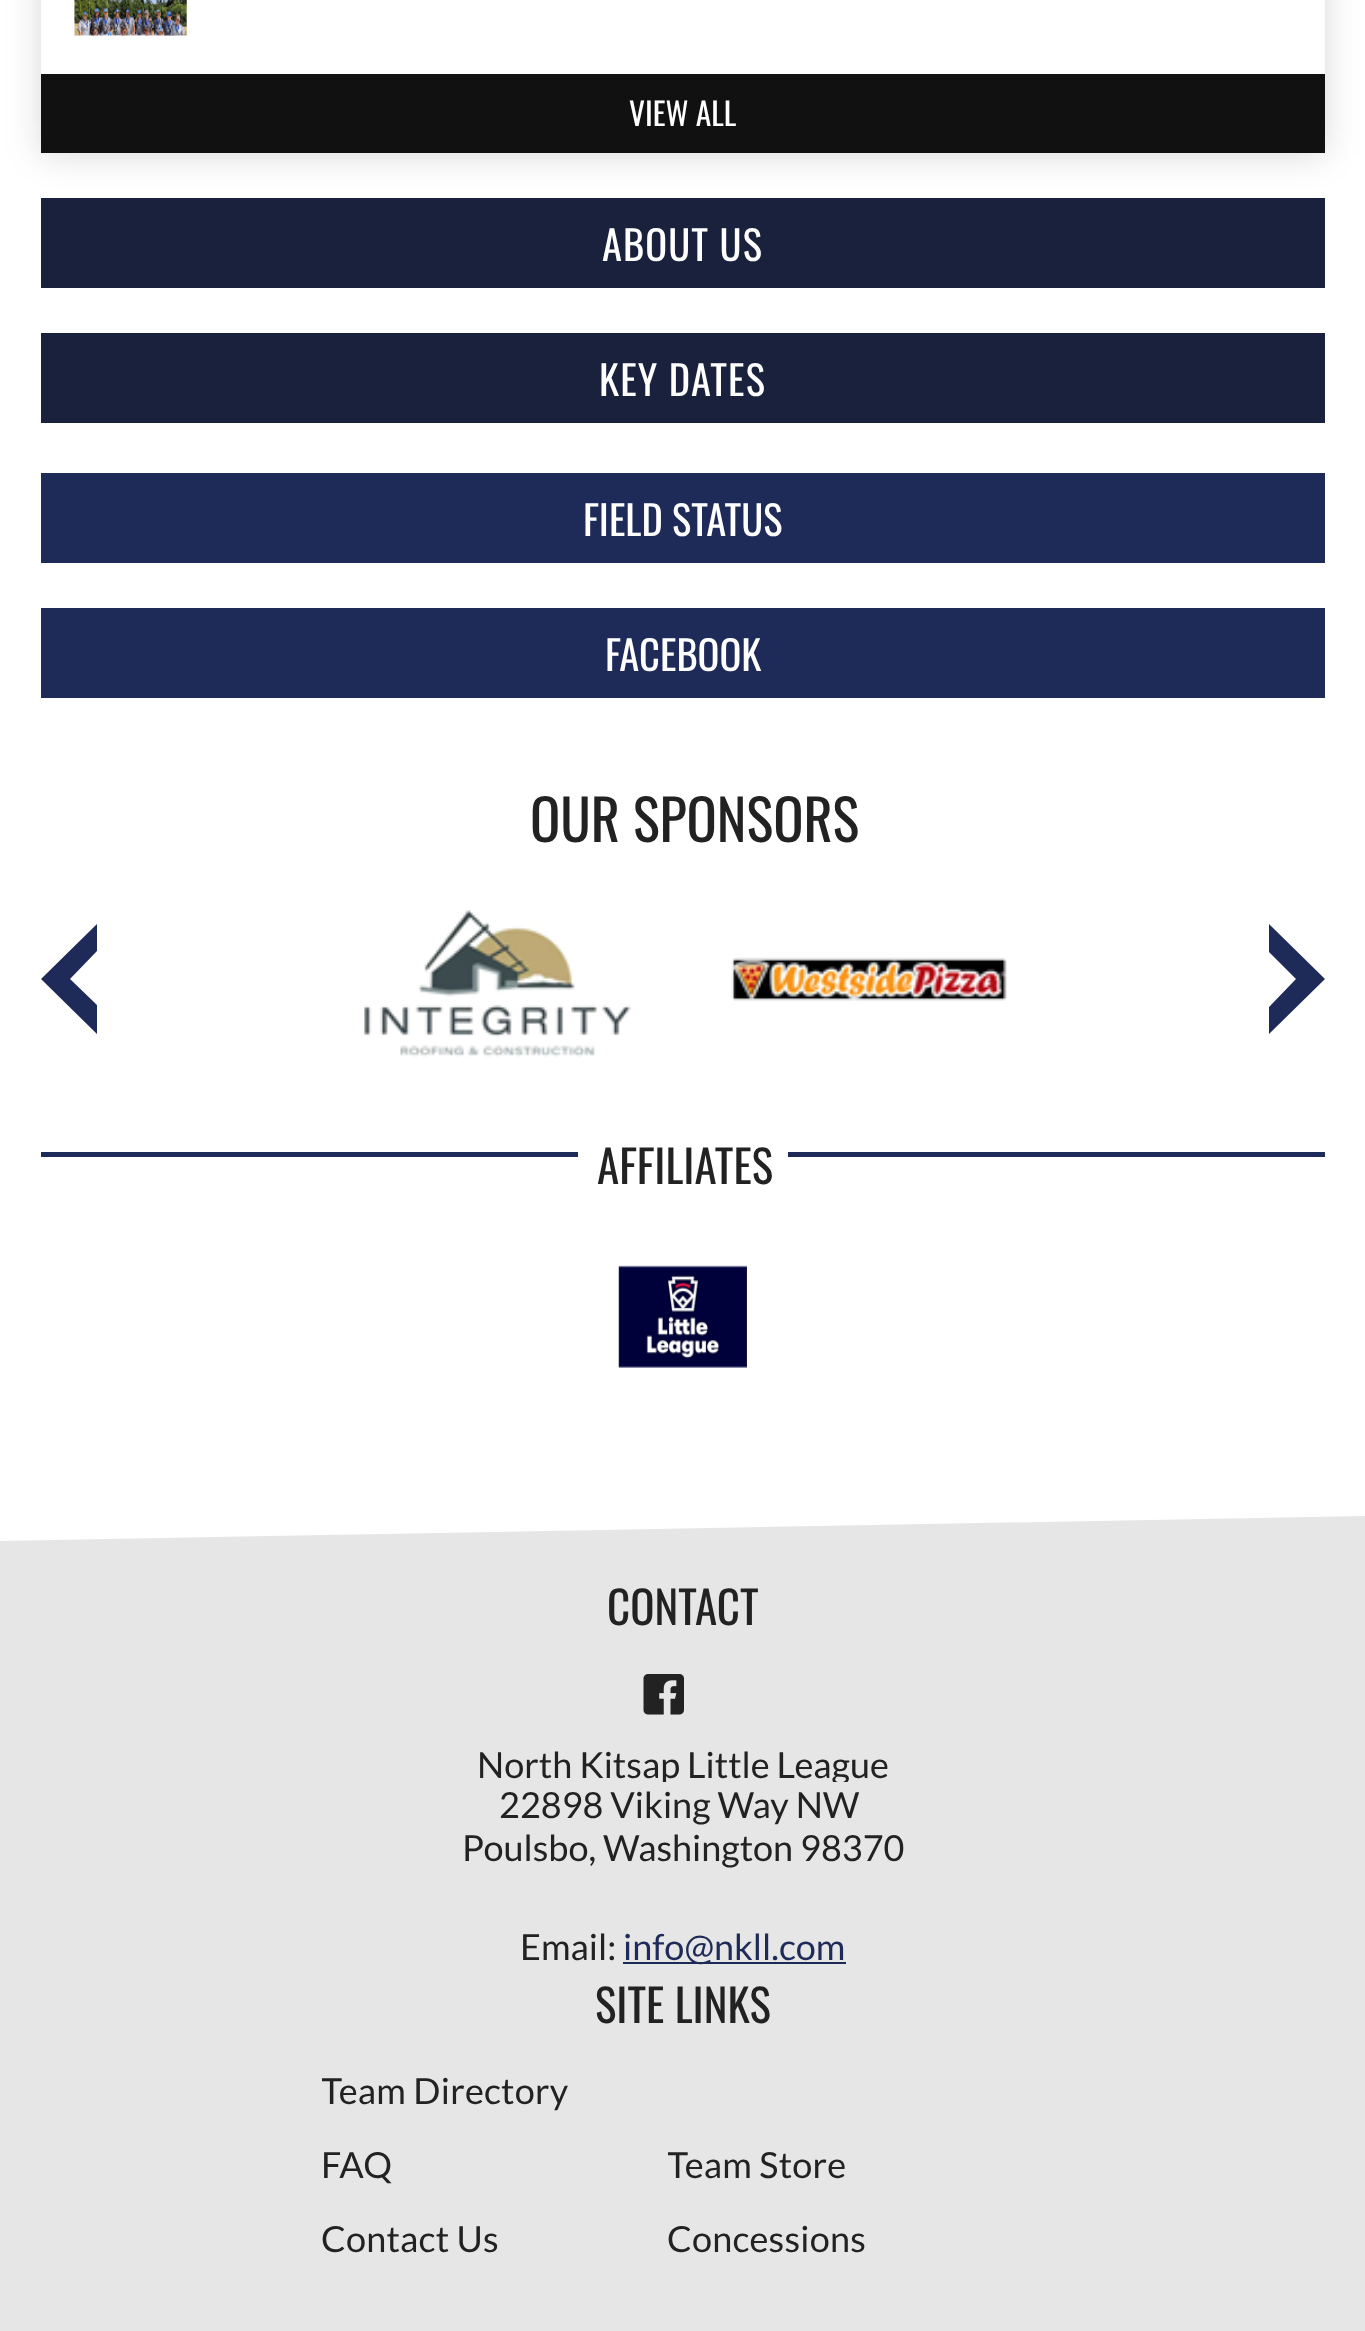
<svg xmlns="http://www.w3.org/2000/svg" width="1365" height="2331">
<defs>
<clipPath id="clip1"><path d="M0 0h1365v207h-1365zm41-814h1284v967h-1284z" clip-rule="evenodd"/></clipPath>
<clipPath id="clip2"><rect x="322" y="1728" width="724" height="54"/></clipPath>
<clipPath id="clip3"><rect x="322" y="2057" width="340" height="67"/></clipPath>
<clipPath id="clip4"><rect x="668" y="2131" width="340" height="67"/></clipPath>
</defs>
<rect width="100%" height="100%" fill="#fff"/>
<g clip-path="url(#clip1)">
<rect x="41" y="-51" width="1284" height="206" fill="#00000026" filter="blur(17px)"/>
</g>
<image x="74" y="0" width="113" height="36" href="media/1.png"/>
<rect x="41" y="74" width="1284" height="79" fill="#111"/>
<text x="629" y="126" style="font-family:Oswald;font-size:31.5px;fill:#fff">VIEW ALL</text>
<rect x="41" y="198" width="1284" height="90" fill="#19213c"/>
<text x="602" y="261" style="font-family:Oswald;font-size:40.5px;letter-spacing:1.1px;fill:#fff">ABOUT US</text>
<rect x="41" y="333" width="1284" height="90" fill="#19213c"/>
<text x="599" y="396" style="font-family:Oswald;font-size:40.5px;letter-spacing:1.1px;fill:#fff">KEY DATES</text>
<rect x="41" y="473" width="1284" height="90" fill="#1e2b59"/>
<text x="583" y="536" style="font-family:Oswald;font-size:40.5px;fill:#fff">FIELD STATUS</text>
<rect x="41" y="608" width="1284" height="90" fill="#1e2b59"/>
<text x="605" y="671" style="font-family:Oswald;font-size:40.5px;fill:#fff">FACEBOOK</text>
<text x="530" y="842" style="font-family:Oswald;font-size:56.25px;fill:#222">OUR SPONSORS</text>
<path d="M97 1034l-56-55l56-55v27l-27 28l27 26z" fill="#1e2b59"/>
<image x="364" y="910" width="267" height="148" href="media/2.png"/>
<image x="731" y="957" width="276" height="44" href="media/3.png"/>
<path d="M1269 924l56 55l-56 55v-27l27-28l-27-27z" fill="#1e2b59"/>
<rect x="41" y="1152" width="537" height="5" fill="#1e2b59"/>
<text x="597" y="1184" style="font-family:Oswald;font-size:45px;fill:#222">AFFILIATES</text>
<rect x="788" y="1152" width="537" height="5" fill="#1e2b59"/>
<image x="618" y="1265" width="129" height="103" href="media/4.png"/>
<path d="M0 1541v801h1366v-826z" fill="#e6e6e6"/>
<text x="607" y="1625" style="font-family:Oswald;font-size:45px;fill:#222">CONTACT</text>
<image x="643" y="1674" width="41" height="41" href="media/5.png"/>
<g clip-path="url(#clip2)">
<text x="477" y="1778" style="font-family:Lato;font-size:36px;fill:#222">North Kitsap Little League</text>
</g>
<text x="499" y="1818" style="font-family:Lato;font-size:36px;fill:#222">22898 Viking Way NW</text>
<text x="462" y="1861" style="font-family:Lato;font-size:36px;fill:#222">Poulsbo, Washington 98370</text>
<text x="520" y="1960" style="font-family:Lato;font-size:36px;fill:#222">Email:</text>
<rect x="623" y="1962" width="223" height="2" fill="#1e2b59"/>
<text x="623" y="1960" style="font-family:Lato;font-size:36px;fill:#1e2b59">info@nkll.com</text>
<text x="595" y="2023" style="font-family:Oswald;font-size:45px;fill:#222">SITE LINKS</text>
<g clip-path="url(#clip3)">
<text x="321" y="2104" style="font-family:Lato;font-size:36px;letter-spacing:0.25px;fill:#222">Team Directory</text>
</g>
<text x="321" y="2178" style="font-family:Lato;font-size:36px;letter-spacing:0.25px;fill:#222">FAQ</text>
<text x="321" y="2252" style="font-family:Lato;font-size:36px;letter-spacing:0.25px;fill:#222">Contact Us</text>
<g clip-path="url(#clip4)">
<text x="667" y="2178" style="font-family:Lato;font-size:36px;letter-spacing:0.25px;fill:#222">Team Store</text>
</g>
<text x="667" y="2252" style="font-family:Lato;font-size:36px;letter-spacing:0.25px;fill:#222">Concessions</text>
</svg>
